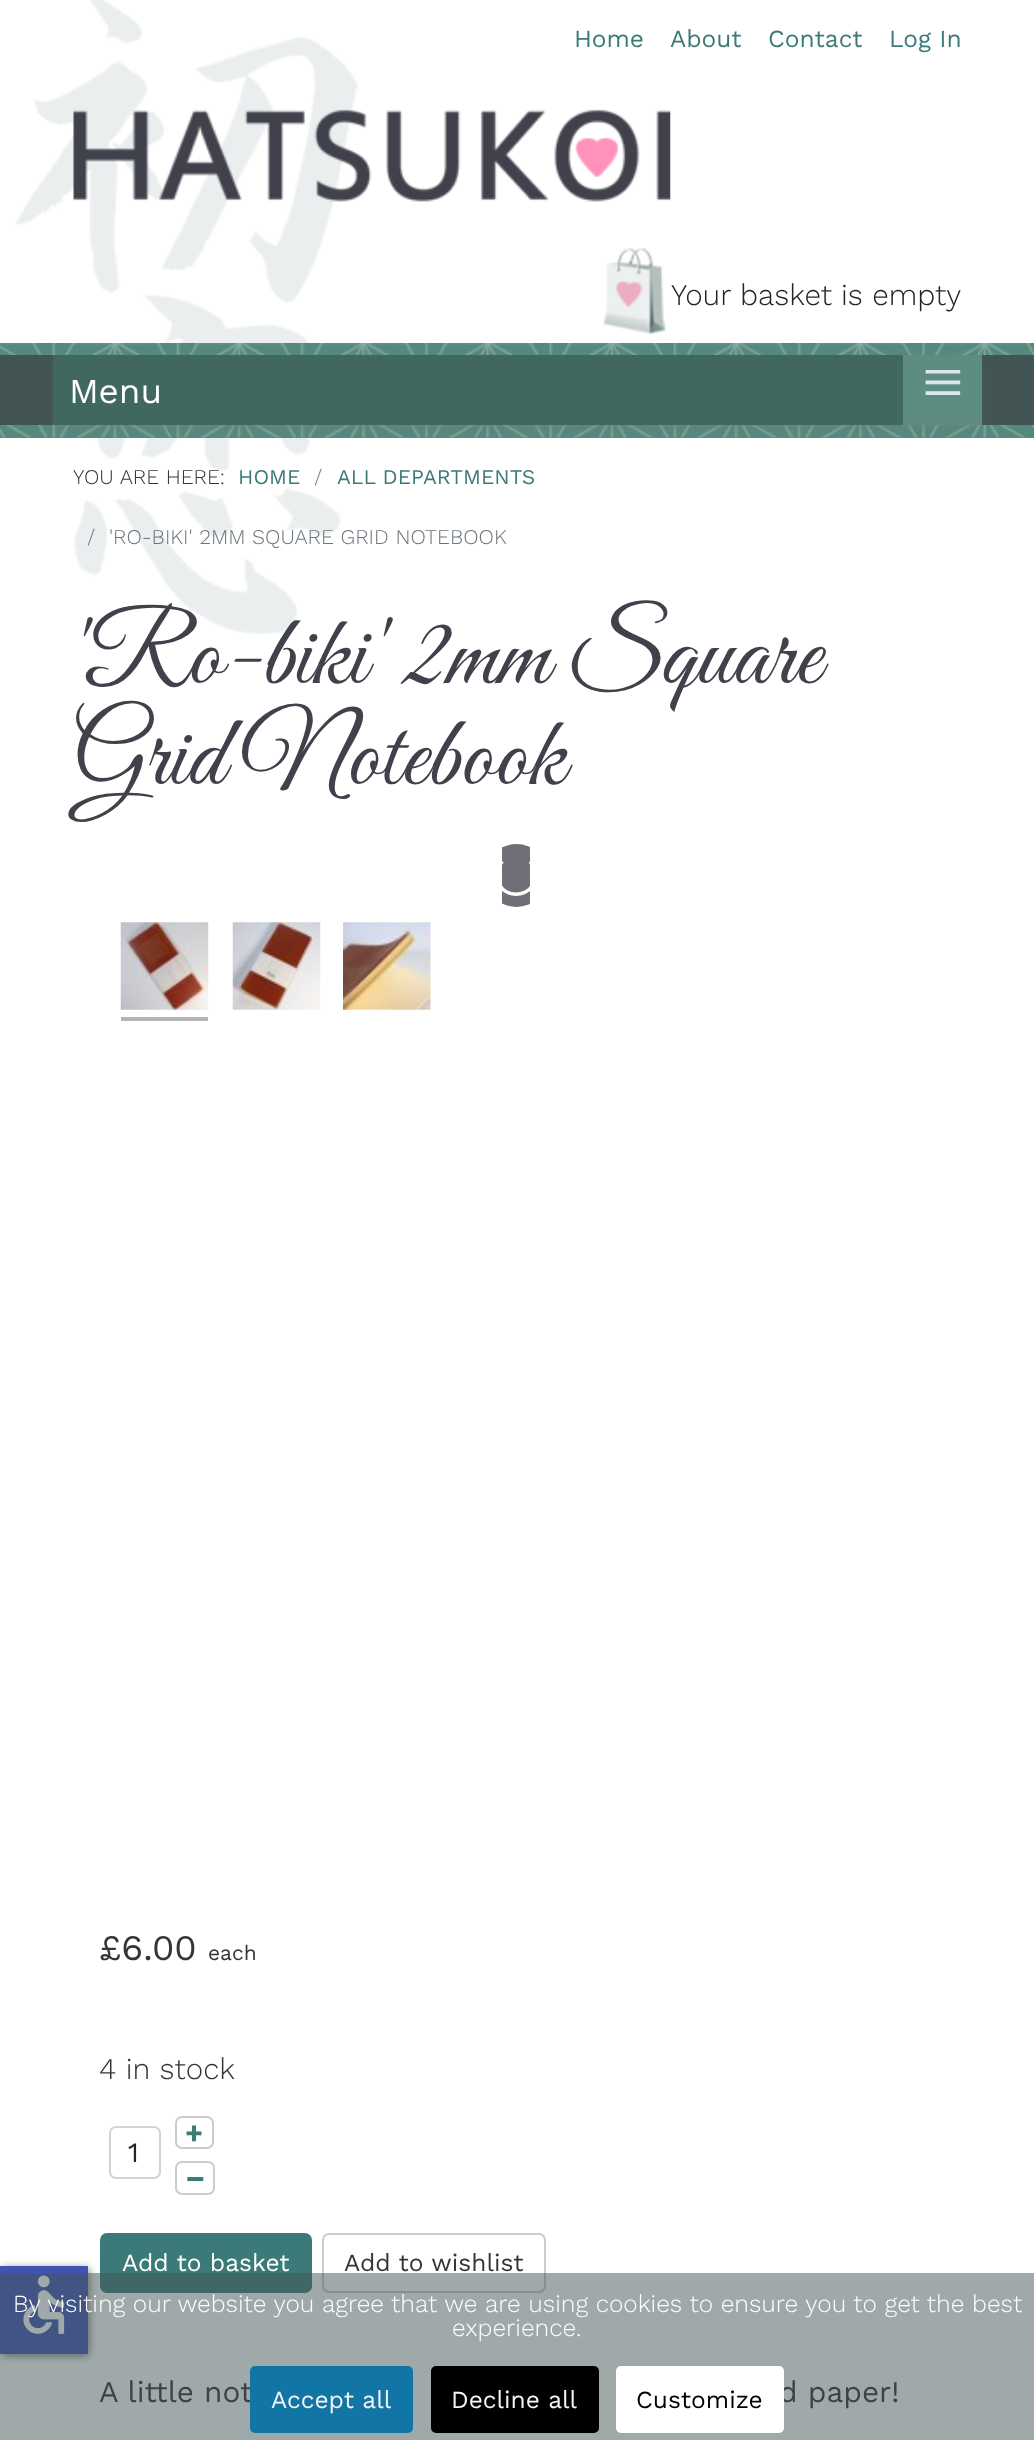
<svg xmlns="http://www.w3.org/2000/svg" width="1034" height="2440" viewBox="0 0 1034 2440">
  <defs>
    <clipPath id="clip1"><rect x="502" y="844" width="28" height="63"/></clipPath>
  </defs>
  <rect width="100%" height="100%" fill="rgb(255,255,255)"/>
  <image x="15" y="0" width="344" height="634" href="pic1.png"/>
  <g font-family="Work Sans" font-size="24.5" fill="rgb(60,122,122)">
    <text x="574" y="47">Home</text>
    <text x="670" y="47">About</text>
    <text x="768" y="47">Contact</text>
    <text x="889" y="47">Log In</text>
  </g>
  <image x="73" y="109" width="598" height="93" href="pic2.png"/>
  <image x="603" y="248" width="63" height="87" href="pic3.png"/>
  <text x="671" y="305" font-family="Work Sans" font-size="29.75" font-weight="300" fill="rgb(33,37,41)">Your basket is empty</text>
  <rect x="0" y="343" width="1034" height="95" fill="rgb(85,137,125)"/>
  <image x="0" y="343" width="1034" height="95" href="pic4.png"/>
  <rect x="0" y="355" width="1034" height="70" fill="rgb(66,84,84)"/>
  <rect x="58" y="364" width="919" height="60" fill="rgb(122,122,122)" filter="blur(4.5px)"/>
  <rect x="53" y="355" width="850" height="70" fill="rgb(65,104,95)"/>
  <text x="69" y="403" font-family="Work Sans" font-size="35" fill="rgb(255,255,255)">Menu</text>
  <rect x="903" y="355" width="79" height="70" fill="rgb(93,140,129)"/>
  <text x="922" y="407" font-family="Liberation Serif" font-size="74" fill="rgb(220,230,238)">≡</text>
  <rect x="101" y="2234" width="210" height="58" rx="6" fill="rgb(60,122,122)" stroke="rgb(60,122,122)" stroke-width="2"/>
  <rect x="2" y="2268" width="87" height="88" fill="rgba(0,0,0,0.5)" filter="blur(4.5px)"/>
  <rect x="0" y="2266" width="88" height="88" fill="rgb(64,84,178)"/>
  <image x="23" y="2275" width="42" height="59" href="pic5.png"/>
  <text x="73" y="484" font-family="Work Sans" font-size="21" font-weight="300" fill="rgb(53,53,53)">YOU ARE HERE:</text>
  <text x="238" y="484" font-family="Work Sans" font-size="21" fill="rgb(60,122,122)">HOME</text>
  <text x="314" y="484" font-family="Work Sans" font-size="21" font-weight="300" fill="rgb(108,117,125)">/</text>
  <text x="337" y="484" font-family="Work Sans" font-size="21" fill="rgb(60,122,122)">ALL DEPARTMENTS</text>
  <g font-family="Work Sans" font-size="21" font-weight="300" fill="rgb(108,117,125)">
    <text x="87" y="544">/</text>
    <text x="109" y="544">'RO-BIKI' 2MM SQUARE GRID NOTEBOOK</text>
  </g>
  <g font-family="Great Vibes" font-size="101.25" fill="rgb(64,65,75)">
    <text>
      <tspan x="73" y="683">'Ro-biki' 2mm Square</tspan>
      <tspan x="73" y="784">Grid Notebook</tspan>
    </text>
  </g>
  <g clip-path="url(#clip1)">
    <circle cx="516.5" cy="875.5" r="31.5" fill="rgb(111,112,119)"/>
    <path d="M530 861.5C533.5 865 535.5 870 535.5 875C535.5 898 502 901.5 497.5 879C496 872.5 498 866 502.5 861.5" fill="none" stroke="rgb(255,255,255)" stroke-width="3.5"/>
  </g>
  <image x="120" y="922" width="89" height="88" href="pic6.png"/>
  <rect x="121" y="1017" width="87" height="4" fill="rgb(180,180,180)"/>
  <image x="232" y="922" width="89" height="88" href="pic7.png"/>
  <image x="343" y="922" width="88" height="88" href="pic8.png"/>
  <text x="99" y="1960" font-family="Work Sans" font-size="36" fill="rgb(53,53,53)">£6.00</text>
  <text x="208" y="1960" font-family="Work Sans" font-size="21" fill="rgb(53,53,53)">each</text>
  <text x="99" y="2079" font-family="Work Sans" font-size="29.75" font-weight="300" fill="rgb(53,53,53)">4 in stock</text>
  <rect x="176" y="2117" width="37" height="31" rx="6" fill="none" stroke="rgb(204,204,204)" stroke-width="2"/>
  <text x="185" y="2143" font-family="Work Sans" font-size="29.75" font-weight="bold" fill="rgb(60,122,122)">+</text>
  <rect x="110" y="2127" width="50" height="51" rx="6" fill="none" stroke="rgb(206,212,218)" stroke-width="2"/>
  <text x="128" y="2162" font-family="Work Sans" font-size="28" fill="rgb(33,37,41)">1</text>
  <rect x="176" y="2162" width="38" height="32" rx="6" fill="none" stroke="rgb(204,204,204)" stroke-width="2"/>
  <text x="185" y="2187" font-family="Work Sans" font-size="29.75" font-weight="bold" fill="rgb(60,122,122)">–</text>
  <text x="122" y="2271" font-family="Work Sans" font-size="24.5" fill="rgb(255,255,255)">Add to basket</text>
  <rect x="323" y="2234" width="222" height="58" rx="6" fill="none" stroke="rgb(204,204,204)" stroke-width="2"/>
  <text x="344" y="2271" font-family="Work Sans" font-size="24.5" fill="rgb(53,53,53)">Add to wishlist</text>
  <g font-family="Work Sans" font-size="29.75" fill="rgb(53,53,53)">
    <text x="99" y="2402">A little not</text>
    <text x="779" y="2402">d paper!</text>
  </g>
  <rect x="0" y="2273" width="1034" height="167" fill="rgba(66,84,84,0.5)"/>
  <g font-family="Work Sans" font-size="24.5" font-weight="300" fill="rgb(255,255,255)">
    <text x="13" y="2312">By visiting our website you agree that we are using cookies to ensure you to get the best</text>
    <text x="452" y="2336">experience.</text>
  </g>
  <rect x="252" y="2368" width="159" height="63" rx="3" fill="rgb(17,118,166)" stroke="rgb(17,118,166)" stroke-width="4"/>
  <text x="271" y="2408" font-family="Work Sans" font-size="24.5" fill="rgb(245,245,245)">Accept all</text>
  <rect x="433" y="2368" width="164" height="63" rx="3" fill="rgb(0,0,0)" stroke="rgb(0,0,0)" stroke-width="4"/>
  <text x="451" y="2408" font-family="Work Sans" font-size="24.5" fill="rgb(245,245,245)">Decline all</text>
  <rect x="618" y="2368" width="164" height="63" rx="3" fill="rgb(255,255,255)" stroke="rgb(255,255,255)" stroke-width="4"/>
  <text x="636" y="2408" font-family="Work Sans" font-size="24.5" fill="rgb(0,0,0)">Customize</text>
</svg>
